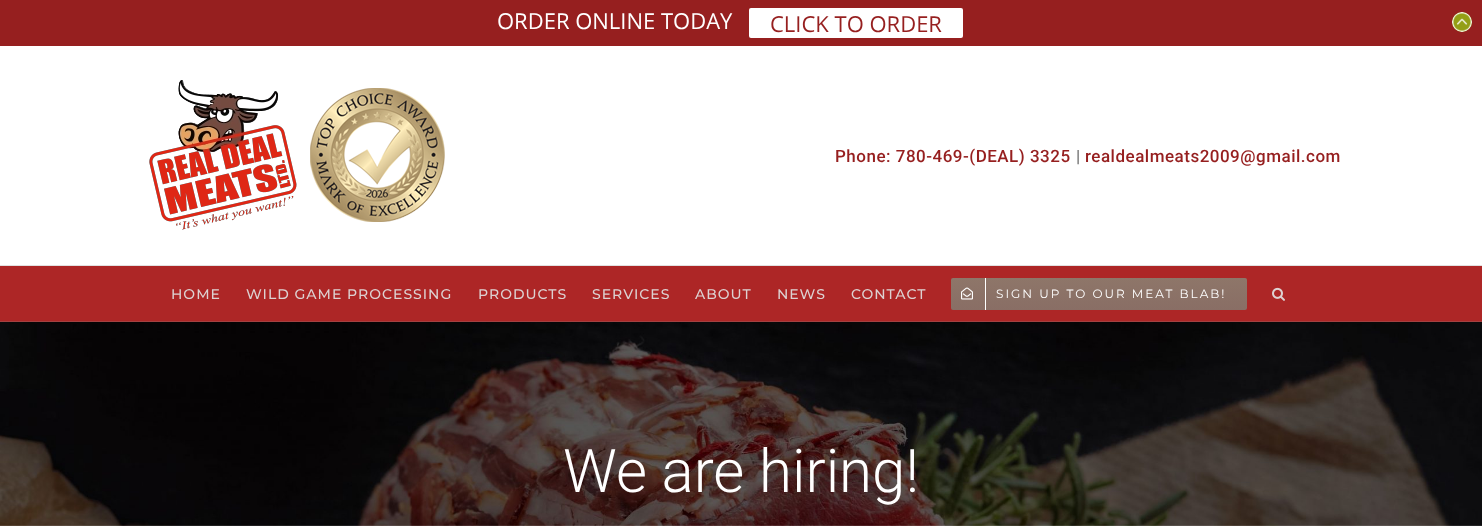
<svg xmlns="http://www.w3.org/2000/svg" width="1482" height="526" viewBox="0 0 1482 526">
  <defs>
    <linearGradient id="g1" gradientUnits="userSpaceOnUse" x1="1099" y1="278" x2="1099" y2="310"><stop offset="0" stop-color="rgb(142,118,105)"/><stop offset="1" stop-color="rgb(137,110,101)"/></linearGradient>
  </defs>
  <rect width="100%" height="100%" fill="rgb(255,255,255)"/>
  <rect x="0" y="0" width="1482" height="46" fill="rgb(150,31,31)"/>
  <text x="497" y="29" font-family="Open Sans" font-size="22" fill="rgb(255,255,255)">ORDER ONLINE TODAY</text>
  <rect x="749" y="8" width="214" height="30" rx="2" fill="rgb(255,255,255)"/>
  <text x="770" y="32" font-family="Open Sans" font-size="22" fill="rgb(150,31,31)">CLICK TO ORDER</text>
  <circle cx="1462" cy="22" r="10" fill="rgb(148,159,21)"/>
  <image x="1452" y="12" width="20" height="20" href="pic1.png"/>
  <rect x="0" y="265" width="1482" height="1" fill="rgb(225,225,225)"/>
  <image x="149" y="80" width="296" height="150" href="pic2.png"/>
  <text x="835" y="162" font-family="Roboto" font-size="17" font-weight="500" letter-spacing="0.5" fill="rgb(150,31,31)">Phone: 780-469-(DEAL) 3325</text>
  <text x="1076" y="162" font-family="Roboto" font-size="17" font-weight="500" letter-spacing="0.5" fill="rgb(116,116,116)">|</text>
  <text x="1085" y="162" font-family="Roboto" font-size="17" font-weight="500" letter-spacing="0.5" fill="rgb(150,31,31)">realdealmeats2009@gmail.com</text>
  <rect x="0" y="266" width="1482" height="55" fill="rgb(173,38,38)"/>
  <rect x="0" y="321" width="1482" height="1" fill="rgb(164,65,65)"/>
  <g font-family="Montserrat" font-size="14" font-weight="500" letter-spacing="1" fill="rgb(221,209,209)">
    <text x="171" y="299">HOME</text>
    <text x="246" y="299">WILD GAME PROCESSING</text>
    <text x="478" y="299">PRODUCTS</text>
    <text x="592" y="299">SERVICES</text>
    <text x="695" y="299">ABOUT</text>
    <text x="777" y="299">NEWS</text>
    <text x="851" y="299">CONTACT</text>
  </g>
  <rect x="951" y="278" width="296" height="32" rx="2" fill="url(#g1)"/>
  <rect x="985" y="278" width="1" height="32" fill="rgb(255,255,255)"/>
  <image x="961" y="287" width="12" height="13" href="pic3.png"/>
  <text x="996" y="298" font-family="Montserrat" font-size="12" letter-spacing="2" fill="rgb(255,255,255)">SIGN UP TO OUR MEAT BLAB!</text>
  <image x="1272" y="287" width="13" height="14" href="pic4.png"/>
  <image x="0" y="322" width="1482" height="204" href="pic5.png"/>
  <text x="563" y="492" font-family="Roboto" font-size="60" font-weight="300" fill="rgb(255,255,255)">We are hiring!</text>
</svg>
